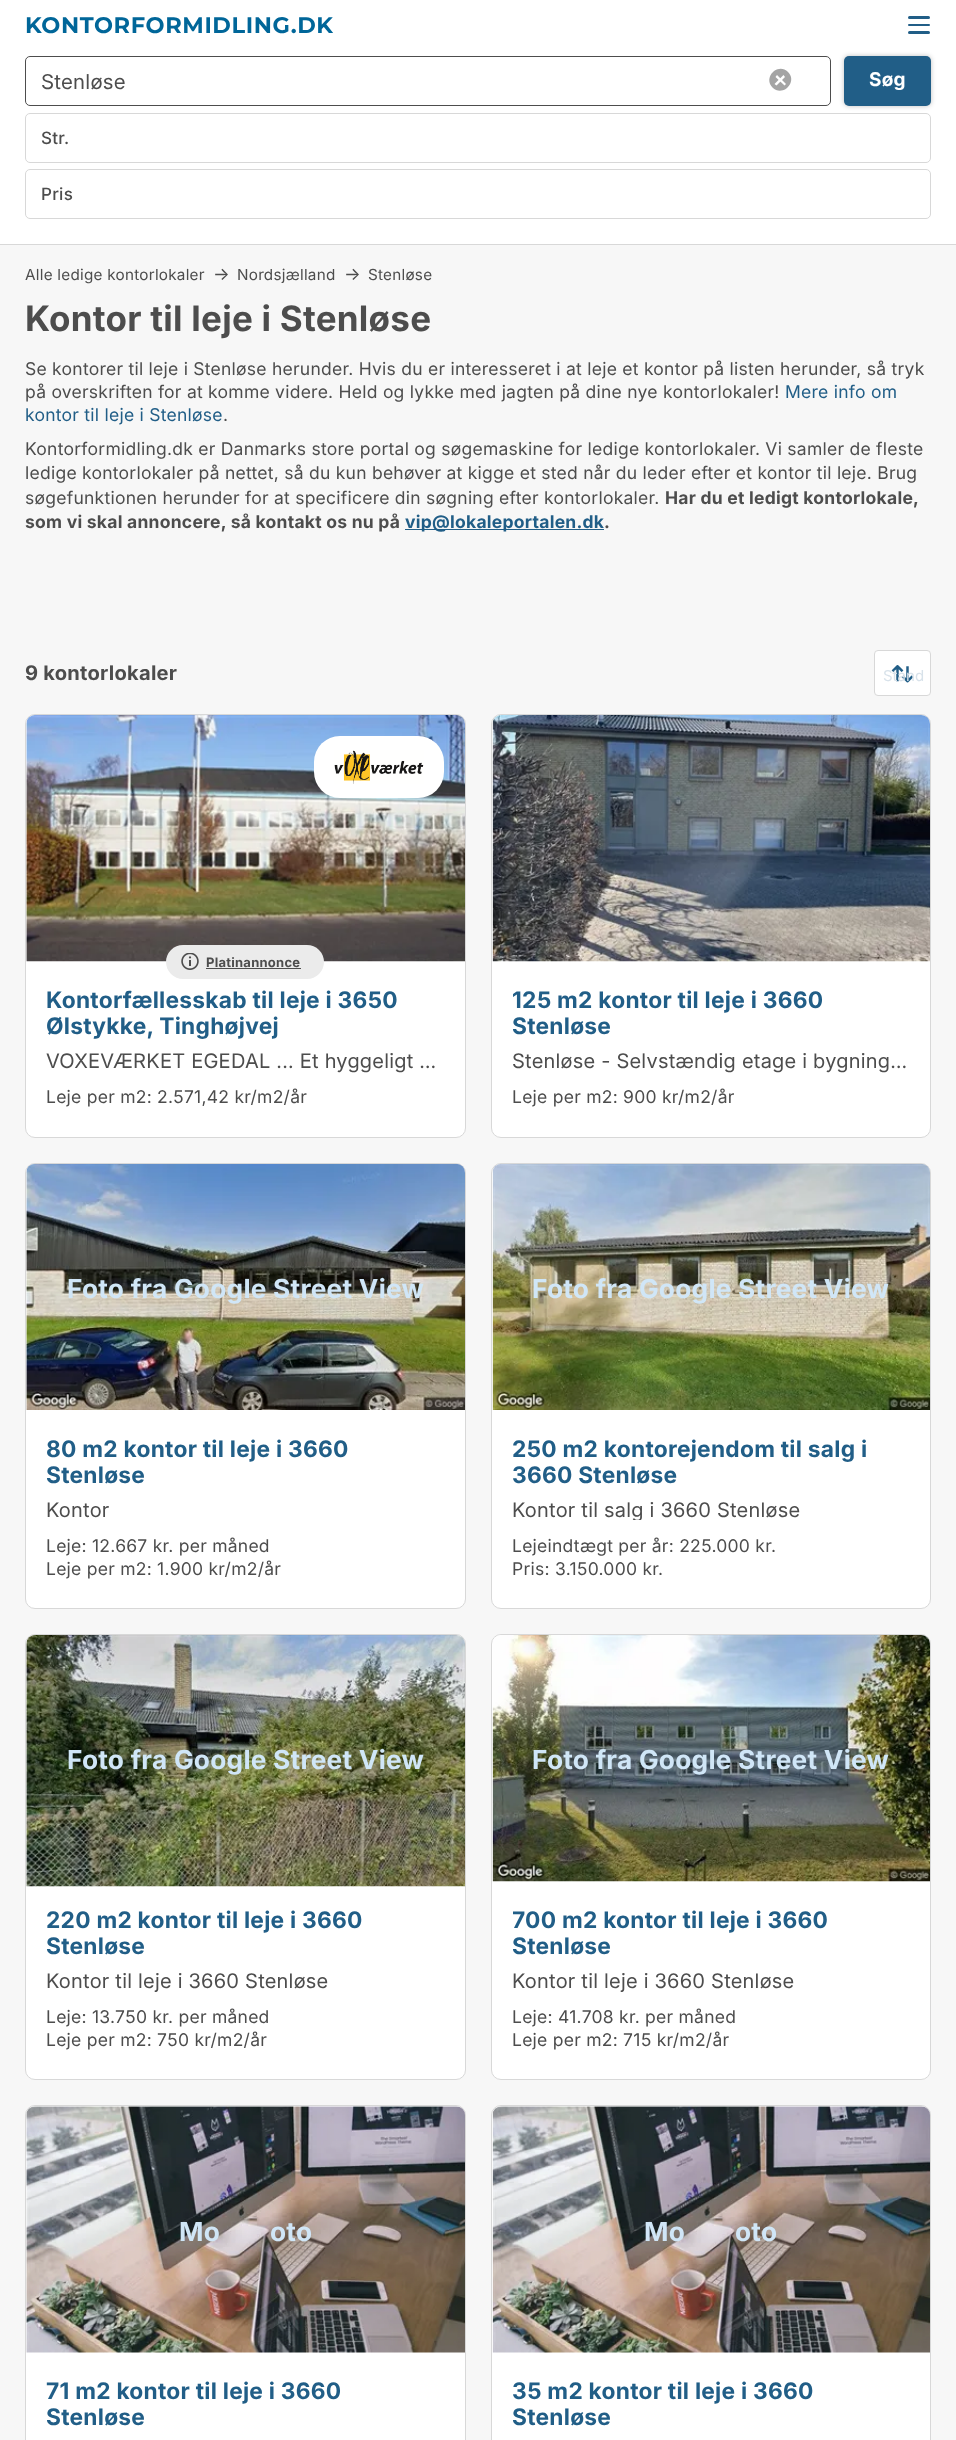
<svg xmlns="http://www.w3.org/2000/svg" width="956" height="2440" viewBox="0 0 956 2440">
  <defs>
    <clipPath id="clip1"><rect x="513" y="986" width="397" height="53"/></clipPath>
    <clipPath id="clip2"><rect x="513" y="1498" width="397" height="22"/></clipPath>
    <clipPath id="clip3"><rect x="513" y="1906" width="397" height="53"/></clipPath>
  </defs>
  <rect width="100%" height="100%" fill="rgb(255,255,255)"/>
  <text x="25" y="33" font-family="Montserrat" font-size="22.5" font-weight="bold" letter-spacing="0.6" fill="rgb(0,102,153)">KONTORFORMIDLING.DK</text>
  <rect x="908" y="16" width="22" height="3" rx="1.5" fill="rgb(33,94,135)"/>
  <rect x="908" y="24" width="22" height="2" rx="1" fill="rgb(33,94,135)"/>
  <rect x="908" y="31" width="22" height="3" rx="1.5" fill="rgb(33,94,135)"/>
  <rect x="0" y="245" width="956" height="2195" fill="rgb(247,247,247)"/>
  <rect x="0" y="244" width="956" height="1" fill="rgb(216,216,216)"/>
  <rect x="25.5" y="56.5" width="805" height="49" rx="4.5" fill="none" stroke="rgb(77,77,77)"/>
  <text x="41" y="89" font-family="'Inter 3'" font-size="20.5" letter-spacing="0.25" fill="rgb(77,77,77)">Stenløse</text>
  <path d="M788 72C798 82 782.5 97.5 772.5 87.5C762.5 77.5 778 62 788 72Z" fill="rgb(164,164,164)"/>
  <path d="M777 75L786 84L784.5 85.5L775.5 77Z" fill="rgb(255,255,255)"/>
  <path d="M783.5 75L785 77L776.5 85.5L774.5 84Z" fill="rgb(255,255,255)"/>
  <rect x="844" y="56" width="87" height="50" rx="5" fill="rgba(0,0,0,0.25)" filter="blur(2.5px)"/>
  <rect x="844" y="56" width="87" height="50" rx="5" fill="rgb(33,94,135)"/>
  <text x="869" y="86" font-family="Inter" font-size="19" font-weight="bold" letter-spacing="0.25" fill="rgb(255,255,255)">Søg</text>
  <rect x="25.5" y="113.5" width="905" height="49" rx="4.5" fill="none" stroke="rgb(216,216,216)"/>
  <text x="41" y="144" font-family="Inter" font-size="17" font-weight="500" letter-spacing="0.25" fill="rgb(77,77,77)">Str.</text>
  <rect x="25.5" y="169.5" width="905" height="49" rx="4.5" fill="none" stroke="rgb(216,216,216)"/>
  <text x="41" y="200" font-family="Inter" font-size="17" font-weight="500" letter-spacing="0.25" fill="rgb(77,77,77)">Pris</text>
  <text x="25" y="280" font-family="Inter" font-size="15.25" letter-spacing="0.25" fill="rgb(77,77,77)">Alle ledige kontorlokaler</text>
  <text x="213" y="280" font-family="Inter" font-size="17.5" letter-spacing="0.25" fill="rgb(77,77,77)">→</text>
  <text x="237" y="280" font-family="Inter" font-size="15.25" letter-spacing="0.25" fill="rgb(77,77,77)">Nordsjælland</text>
  <text x="344" y="280" font-family="Inter" font-size="17.5" letter-spacing="0.25" fill="rgb(77,77,77)">→</text>
  <text x="368" y="280" font-family="Inter" font-size="15.25" letter-spacing="0.25" fill="rgb(77,77,77)">Stenløse</text>
  <text x="25" y="331" font-family="Inter" font-size="35" font-weight="bold" letter-spacing="0.25" fill="rgb(77,77,77)">Kontor til leje i Stenløse</text>
  <g font-family="Inter" font-size="17.5" letter-spacing="0.25" fill="rgb(77,77,77)">
    <text>
      <tspan x="25" y="375">Se kontorer til leje i Stenløse herunder. Hvis du er interesseret i at leje et kontor på listen herunder, så tryk</tspan>
      <tspan x="25" y="398">på overskriften for at komme videre. Held og lykke med jagten på dine nye kontorlokaler!</tspan>
    </text>
  </g>
  <g font-family="Inter" font-size="17.5" letter-spacing="0.25" fill="rgb(33,94,135)">
    <text x="785" y="398">Mere info om</text>
    <text x="25" y="421">kontor til leje i Stenløse</text>
  </g>
  <g font-family="Inter" font-size="17.5" letter-spacing="0.25" fill="rgb(77,77,77)">
    <text x="223" y="421">.</text>
    <text>
      <tspan x="25" y="455">Kontorformidling.dk er Danmarks store portal og søgemaskine for ledige kontorlokaler. Vi samler de fleste</tspan>
      <tspan x="25" y="479">ledige kontorlokaler på nettet, så du kun behøver at kigge et sted når du leder efter et kontor til leje. Brug</tspan>
      <tspan x="25" y="504">søgefunktionen herunder for at specificere din søgning efter kontorlokaler.</tspan>
    </text>
  </g>
  <g font-family="Inter" font-size="17.5" font-weight="bold" letter-spacing="0.25" fill="rgb(77,77,77)">
    <text x="665" y="504">Har du et ledigt kontorlokale,</text>
    <text x="25" y="528">som vi skal annoncere, så kontakt os nu på</text>
  </g>
  <rect x="405" y="529" width="199" height="1" fill="rgb(33,94,135)"/>
  <text x="405" y="528" font-family="Inter" font-size="17.5" font-weight="bold" letter-spacing="0.25" fill="rgb(33,94,135)">vip@lokaleportalen.dk</text>
  <text x="604" y="528" font-family="Inter" font-size="17.5" font-weight="bold" letter-spacing="0.25" fill="rgb(77,77,77)">.</text>
  <text x="25" y="680" font-family="Inter" font-size="20.1" font-weight="bold" letter-spacing="0.25" fill="rgb(77,77,77)">9 kontorlokaler</text>
  <rect x="874.5" y="650.5" width="56" height="45" rx="3.5" fill="rgb(255,255,255)" stroke="rgb(216,216,216)"/>
  <image x="891" y="665" width="23" height="18" href="pic1.png"/>
  <text x="883" y="681" font-family="Inter" font-size="15" fill="rgb(216,226,234)">Stand</text>
  <rect x="25.5" y="714.5" width="440" height="423" rx="9.5" fill="rgb(255,255,255)" stroke="rgb(216,216,216)"/>
  <image x="26" y="715" width="439" height="247" href="pic2.png"/>
  <rect x="314" y="736" width="130" height="62" rx="26" fill="rgb(255,255,255)"/>
  <image x="334" y="750" width="90" height="34" href="pic3.png"/>
  <rect x="166" y="945" width="158" height="34" rx="17" fill="rgb(235,235,235)"/>
  <image x="181" y="953" width="18" height="17" href="pic4.png"/>
  <text x="206" y="967" font-family="Inter" font-size="13" font-weight="bold" letter-spacing="0.25" fill="rgb(77,77,77)">Platinannonce</text>
  <rect x="206" y="968" width="95" height="1" fill="rgb(77,77,77)"/>
  <g font-family="Inter" font-size="22.75" font-weight="bold" letter-spacing="0.25" fill="rgb(33,94,135)">
    <text>
      <tspan x="46" y="1008">Kontorfællesskab til leje i 3650</tspan>
      <tspan x="46" y="1034">Ølstykke, Tinghøjvej</tspan>
    </text>
  </g>
  <text x="46" y="1068" font-family="'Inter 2'" font-size="20.1" letter-spacing="0.25" fill="rgb(77,77,77)">VOXEVÆRKET EGEDAL ... Et hyggeligt …</text>
  <text x="46" y="1103" font-family="Inter" font-size="17.5" letter-spacing="0.25" fill="rgb(77,77,77)">Leje per m2: 2.571,42 kr/m2/år</text>
  <rect x="491.5" y="714.5" width="439" height="423" rx="9.5" fill="rgb(255,255,255)" stroke="rgb(216,216,216)"/>
  <image x="492" y="715" width="438" height="247" href="pic5.png"/>
  <g clip-path="url(#clip1)">
    <text x="512" y="1008" font-family="Inter" font-size="22.75" font-weight="bold" letter-spacing="0.25" fill="rgb(33,94,135)">125 m2 kontor til leje i 3660</text>
  </g>
  <text x="512" y="1034" font-family="Inter" font-size="22.75" font-weight="bold" letter-spacing="0.25" fill="rgb(33,94,135)">Stenløse</text>
  <text x="512" y="1068" font-family="'Inter 2'" font-size="20.1" letter-spacing="0.25" fill="rgb(77,77,77)">Stenløse - Selvstændig etage i bygning…</text>
  <text x="512" y="1103" font-family="Inter" font-size="17.5" letter-spacing="0.25" fill="rgb(77,77,77)">Leje per m2: 900 kr/m2/år</text>
  <rect x="25.5" y="1163.5" width="440" height="445" rx="9.5" fill="rgb(255,255,255)" stroke="rgb(216,216,216)"/>
  <image x="26" y="1164" width="439" height="246" href="pic6.png"/>
  <text x="67" y="1298" font-family="Inter" font-size="26.25" font-weight="bold" letter-spacing="0.25" fill="rgb(208,230,247)">Foto fra Google Street View</text>
  <g font-family="Inter" font-size="22.75" font-weight="bold" letter-spacing="0.25" fill="rgb(33,94,135)">
    <text>
      <tspan x="46" y="1457">80 m2 kontor til leje i 3660</tspan>
      <tspan x="46" y="1483">Stenløse</tspan>
    </text>
  </g>
  <text x="46" y="1517" font-family="'Inter 2'" font-size="20.1" letter-spacing="0.25" fill="rgb(77,77,77)">Kontor</text>
  <g font-family="Inter" font-size="17.5" letter-spacing="0.25" fill="rgb(77,77,77)">
    <text>
      <tspan x="46" y="1552">Leje: 12.667 kr. per måned</tspan>
      <tspan x="46" y="1575">Leje per m2: 1.900 kr/m2/år</tspan>
    </text>
  </g>
  <rect x="491.5" y="1163.5" width="439" height="445" rx="9.5" fill="rgb(255,255,255)" stroke="rgb(216,216,216)"/>
  <image x="492" y="1164" width="438" height="246" href="pic7.png"/>
  <text x="532" y="1298" font-family="Inter" font-size="26.25" font-weight="bold" letter-spacing="0.25" fill="rgb(208,230,247)">Foto fra Google Street View</text>
  <g font-family="Inter" font-size="22.75" font-weight="bold" letter-spacing="0.25" fill="rgb(33,94,135)">
    <text>
      <tspan x="512" y="1457">250 m2 kontorejendom til salg i</tspan>
      <tspan x="512" y="1483">3660 Stenløse</tspan>
    </text>
  </g>
  <g clip-path="url(#clip2)">
    <text x="512" y="1517" font-family="'Inter 2'" font-size="20.1" letter-spacing="0.25" fill="rgb(77,77,77)">Kontor til salg i 3660 Stenløse</text>
  </g>
  <g font-family="Inter" font-size="17.5" letter-spacing="0.25" fill="rgb(77,77,77)">
    <text>
      <tspan x="512" y="1552">Lejeindtægt per år: 225.000 kr.</tspan>
      <tspan x="512" y="1575">Pris: 3.150.000 kr.</tspan>
    </text>
  </g>
  <rect x="25.5" y="1634.5" width="440" height="445" rx="9.5" fill="rgb(255,255,255)" stroke="rgb(216,216,216)"/>
  <image x="26" y="1635" width="439" height="252" href="pic8.png"/>
  <text x="67" y="1769" font-family="Inter" font-size="26.25" font-weight="bold" letter-spacing="0.25" fill="rgb(208,230,247)">Foto fra Google Street View</text>
  <g font-family="Inter" font-size="22.75" font-weight="bold" letter-spacing="0.25" fill="rgb(33,94,135)">
    <text>
      <tspan x="46" y="1928">220 m2 kontor til leje i 3660</tspan>
      <tspan x="46" y="1954">Stenløse</tspan>
    </text>
  </g>
  <text x="46" y="1988" font-family="'Inter 2'" font-size="20.1" letter-spacing="0.25" fill="rgb(77,77,77)">Kontor til leje i 3660 Stenløse</text>
  <g font-family="Inter" font-size="17.5" letter-spacing="0.25" fill="rgb(77,77,77)">
    <text>
      <tspan x="46" y="2023">Leje: 13.750 kr. per måned</tspan>
      <tspan x="46" y="2046">Leje per m2: 750 kr/m2/år</tspan>
    </text>
  </g>
  <rect x="491.5" y="1634.5" width="439" height="445" rx="9.5" fill="rgb(255,255,255)" stroke="rgb(216,216,216)"/>
  <image x="492" y="1635" width="438" height="247" href="pic9.png"/>
  <text x="532" y="1769" font-family="Inter" font-size="26.25" font-weight="bold" letter-spacing="0.25" fill="rgb(208,230,247)">Foto fra Google Street View</text>
  <g clip-path="url(#clip3)">
    <text x="512" y="1928" font-family="Inter" font-size="22.75" font-weight="bold" letter-spacing="0.25" fill="rgb(33,94,135)">700 m2 kontor til leje i 3660</text>
  </g>
  <text x="512" y="1954" font-family="Inter" font-size="22.75" font-weight="bold" letter-spacing="0.25" fill="rgb(33,94,135)">Stenløse</text>
  <text x="512" y="1988" font-family="'Inter 2'" font-size="20.1" letter-spacing="0.25" fill="rgb(77,77,77)">Kontor til leje i 3660 Stenløse</text>
  <g font-family="Inter" font-size="17.5" letter-spacing="0.25" fill="rgb(77,77,77)">
    <text>
      <tspan x="512" y="2023">Leje: 41.708 kr. per måned</tspan>
      <tspan x="512" y="2046">Leje per m2: 715 kr/m2/år</tspan>
    </text>
  </g>
  <rect x="25.5" y="2105.5" width="440" height="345" rx="9.5" fill="rgb(255,255,255)" stroke="rgb(216,216,216)"/>
  <image x="26" y="2106" width="439" height="247" href="pic10.png"/>
  <g font-family="Inter" font-size="26.25" font-weight="bold" letter-spacing="0.25" fill="rgb(208,230,247)">
    <text x="179" y="2241">Mo</text>
    <text x="270" y="2241">oto</text>
  </g>
  <g font-family="Inter" font-size="22.75" font-weight="bold" letter-spacing="0.25" fill="rgb(33,94,135)">
    <text>
      <tspan x="46" y="2399">71 m2 kontor til leje i 3660</tspan>
      <tspan x="46" y="2425">Stenløse</tspan>
    </text>
  </g>
  <rect x="491.5" y="2105.5" width="439" height="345" rx="9.5" fill="rgb(255,255,255)" stroke="rgb(216,216,216)"/>
  <image x="492" y="2106" width="438" height="247" href="pic11.png"/>
  <g font-family="Inter" font-size="26.25" font-weight="bold" letter-spacing="0.25" fill="rgb(208,230,247)">
    <text x="644" y="2241">Mo</text>
    <text x="735" y="2241">oto</text>
  </g>
  <g font-family="Inter" font-size="22.75" font-weight="bold" letter-spacing="0.25" fill="rgb(33,94,135)">
    <text>
      <tspan x="512" y="2399">35 m2 kontor til leje i 3660</tspan>
      <tspan x="512" y="2425">Stenløse</tspan>
    </text>
  </g>
</svg>
